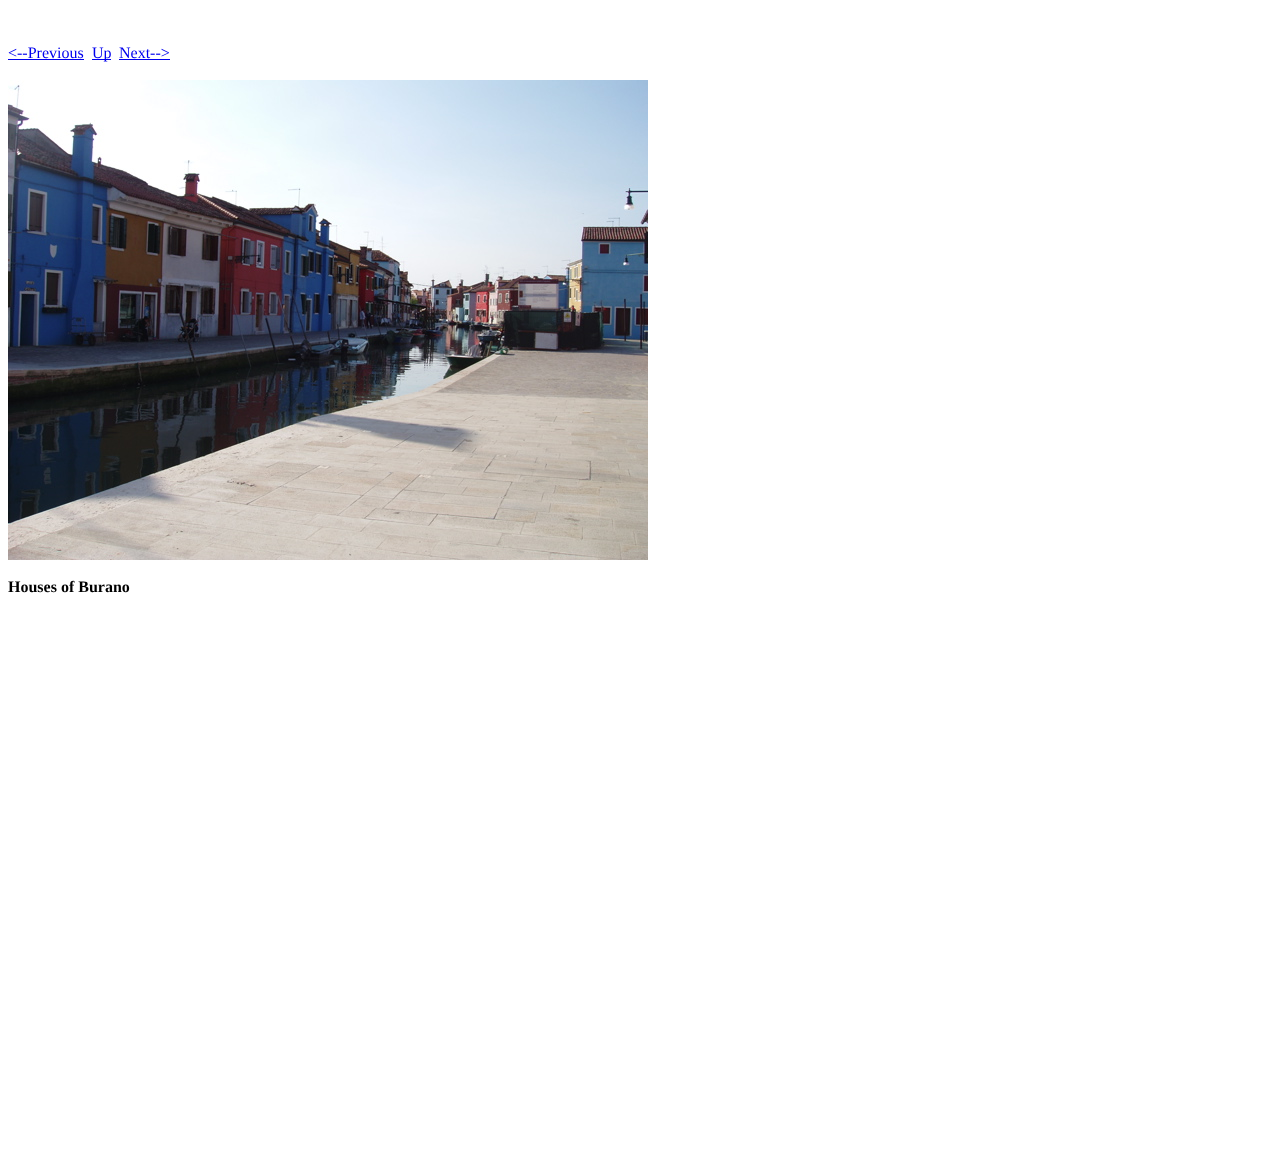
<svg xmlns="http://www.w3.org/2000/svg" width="1269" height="1171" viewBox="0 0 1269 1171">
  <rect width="100%" height="100%" fill="rgb(255,255,255)"/>
  <text x="8" y="58" font-family="Liberation Serif" font-size="16" fill="rgb(0,0,238)">&lt;--Previous</text>
  <rect x="8" y="59" width="76" height="1" fill="rgb(0,0,238)"/>
  <rect x="92" y="59" width="19" height="1" fill="rgb(0,0,238)"/>
  <g font-family="Liberation Serif" font-size="16" fill="rgb(0,0,238)">
    <text x="92" y="58">Up</text>
    <text x="119" y="58">Next--&gt;</text>
  </g>
  <rect x="119" y="59" width="51" height="1" fill="rgb(0,0,238)"/>
  <image x="8" y="80" width="640" height="480" href="pic1.png"/>
  <text x="8" y="592" font-family="Liberation Serif" font-size="16" font-weight="bold" fill="rgb(0,0,0)">Houses of Burano</text>
</svg>
